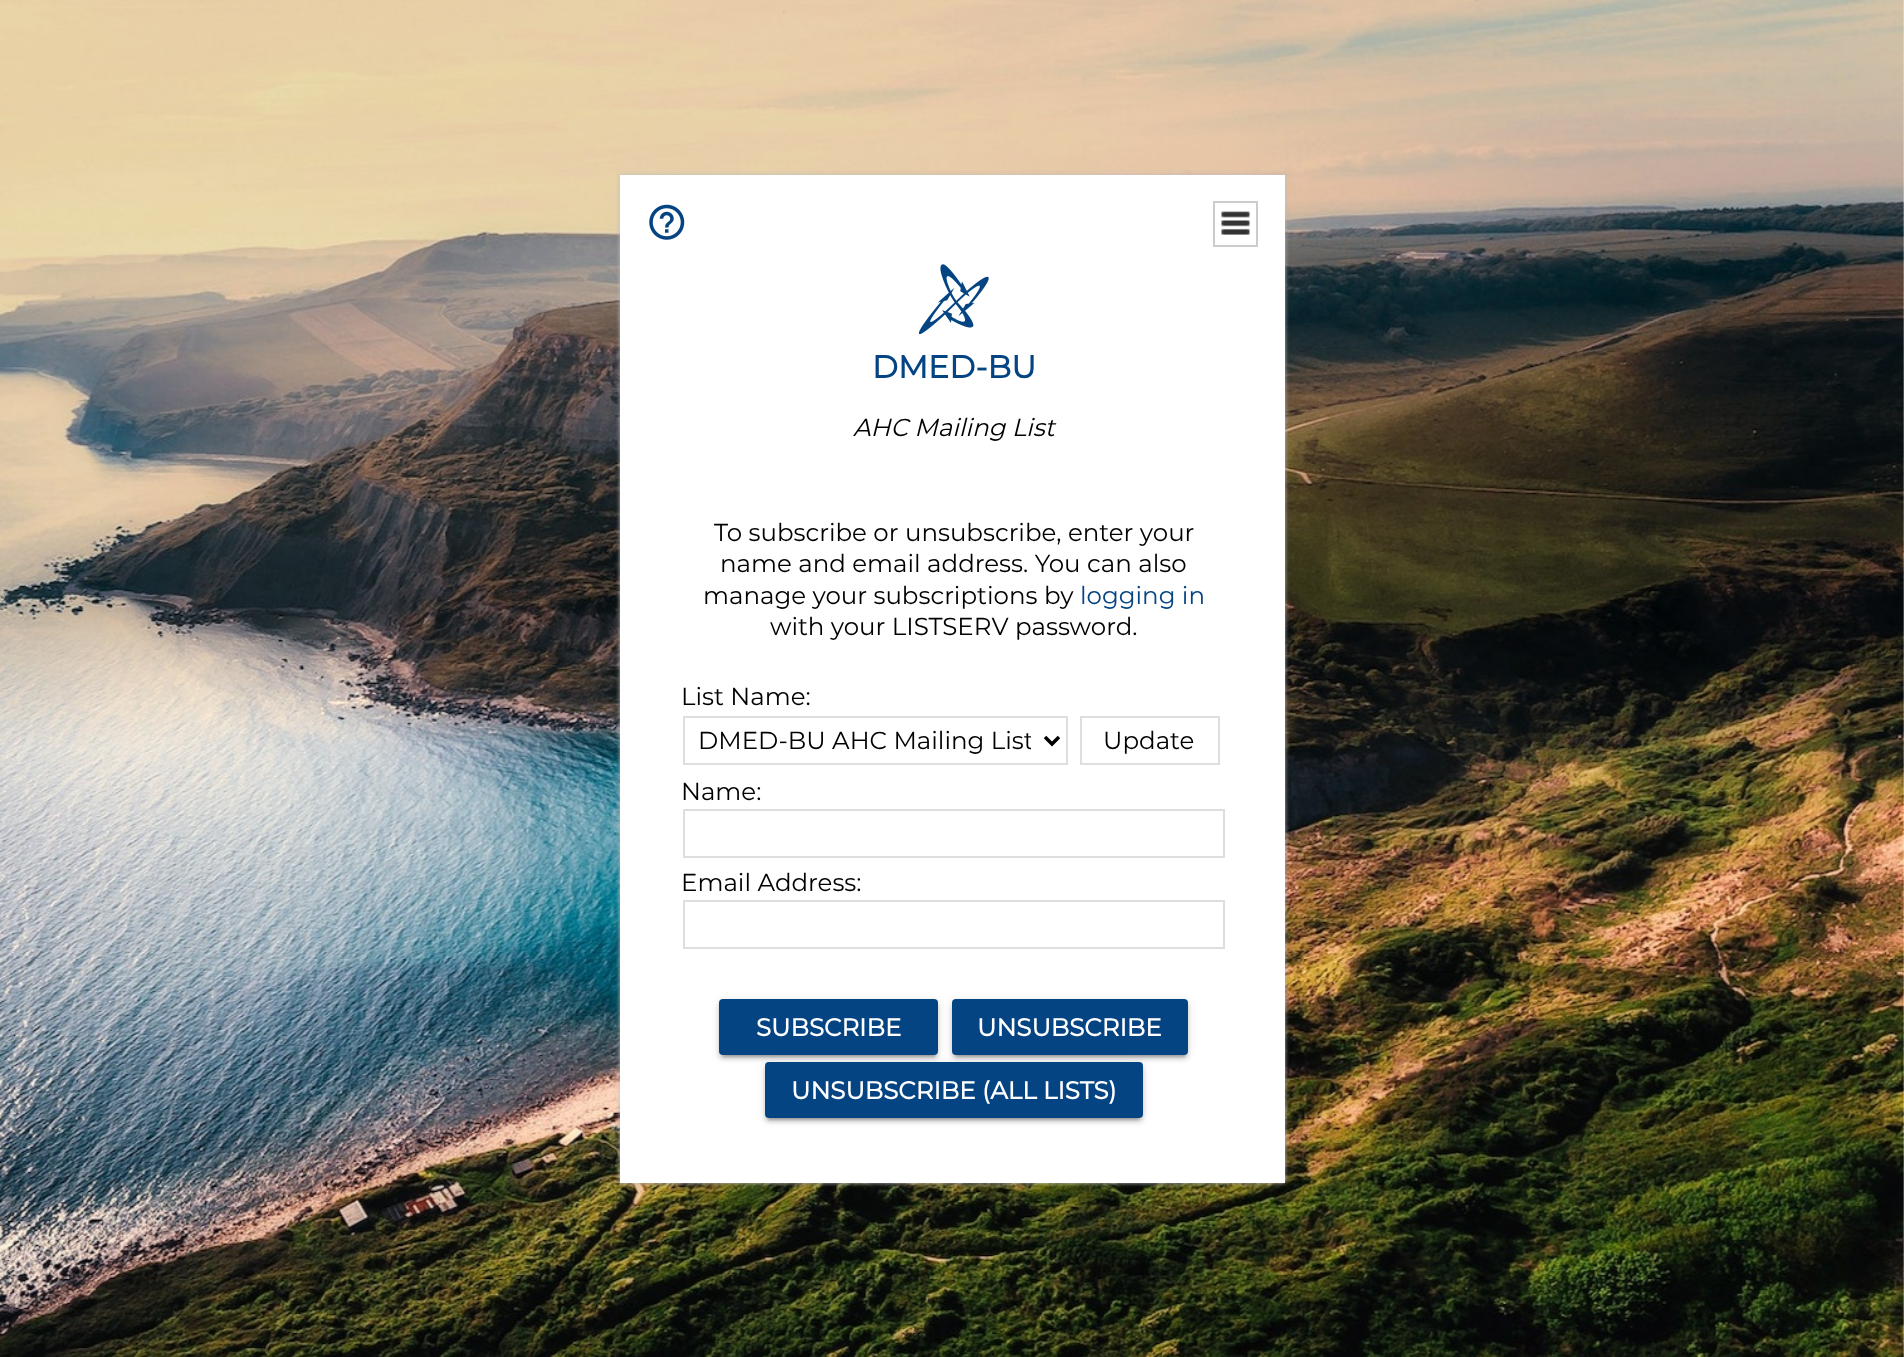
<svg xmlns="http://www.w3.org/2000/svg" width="1904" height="1357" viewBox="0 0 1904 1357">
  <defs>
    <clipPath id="clip1"><rect x="698" y="723" width="333" height="35"/></clipPath>
  </defs>
  <rect width="100%" height="100%" fill="rgb(255,255,255)"/>
  <image x="0" y="0" width="1904" height="1357" href="pic1.png"/>
  <rect x="620" y="175" width="665" height="1008" fill="rgb(187,187,187)" filter="blur(2px)"/>
  <rect x="620" y="175" width="665" height="1008" fill="rgb(255,255,255)"/>
  <image x="649" y="204" width="36" height="36" href="pic2.png"/>
  <rect x="1214" y="202" width="43" height="44" fill="none" stroke="rgb(204,204,204)" stroke-width="2"/>
  <image x="1221" y="211" width="29" height="24" href="pic3.png"/>
  <image x="919" y="264" width="70" height="70" href="pic4.png"/>
  <text x="872" y="378" font-family="Montserrat" font-size="31.5" font-weight="bold" fill="rgb(5,68,131)">DMED-BU</text>
  <text x="853" y="436" font-family="Montserrat" font-size="24.5" font-weight="100" font-style="italic" fill="rgb(0,0,0)">AHC Mailing List</text>
  <g font-family="Montserrat" font-size="24.5" font-weight="100" fill="rgb(0,0,0)">
    <text x="714" y="541">To subscribe or unsubscribe, enter your</text>
    <text x="720" y="572">name and email address. You can also</text>
    <text x="703" y="604">manage your subscriptions by</text>
  </g>
  <text x="1080" y="604" font-family="Montserrat" font-size="24.5" font-weight="100" fill="rgb(5,68,131)">logging in</text>
  <g font-family="Montserrat" font-size="24.5" font-weight="100" fill="rgb(0,0,0)">
    <text x="770" y="635">with your LISTSERV password.</text>
    <text x="681" y="705">List Name:</text>
  </g>
  <rect x="684" y="717" width="383" height="47" fill="none" stroke="rgb(222,222,222)" stroke-width="2"/>
  <path d="M1045 737L1052 744L1059 737" fill="none" stroke="rgb(0,0,0)" stroke-width="3.5"/>
  <g clip-path="url(#clip1)">
    <text x="698" y="749" font-family="Montserrat" font-size="24.5" font-weight="100" fill="rgb(0,0,0)">DMED-BU AHC Mailing List</text>
  </g>
  <rect x="1081" y="717" width="138" height="47" fill="none" stroke="rgb(222,222,222)" stroke-width="2"/>
  <g font-family="Montserrat" font-size="24.5" font-weight="100" fill="rgb(0,0,0)">
    <text x="1103" y="749">Update</text>
    <text x="681" y="800">Name:</text>
  </g>
  <rect x="684" y="810" width="540" height="47" fill="none" stroke="rgb(222,222,222)" stroke-width="2"/>
  <text x="681" y="891" font-family="Montserrat" font-size="24.5" font-weight="100" fill="rgb(0,0,0)">Email Address:</text>
  <rect x="684" y="901" width="540" height="47" fill="none" stroke="rgb(222,222,222)" stroke-width="2"/>
  <rect x="723" y="1008" width="212" height="49" fill="rgba(0,0,0,0.2)" filter="blur(1px)"/>
  <rect x="719" y="1001" width="219" height="56" rx="4" fill="rgba(0,0,0,0.12)" filter="blur(4.5px)"/>
  <rect x="719" y="1003" width="219" height="56" rx="4" fill="rgba(0,0,0,0.14)" filter="blur(2px)"/>
  <rect x="719" y="999" width="219" height="56" rx="4" fill="rgb(5,68,131)"/>
  <text x="756" y="1036" font-family="Montserrat" font-size="24.5" font-weight="bold" fill="rgb(255,255,255)">SUBSCRIBE</text>
  <rect x="956" y="1008" width="229" height="49" fill="rgba(0,0,0,0.2)" filter="blur(1px)"/>
  <rect x="952" y="1001" width="236" height="56" rx="4" fill="rgba(0,0,0,0.12)" filter="blur(4.5px)"/>
  <rect x="952" y="1003" width="236" height="56" rx="4" fill="rgba(0,0,0,0.14)" filter="blur(2px)"/>
  <rect x="952" y="999" width="236" height="56" rx="4" fill="rgb(5,68,131)"/>
  <text x="977" y="1036" font-family="Montserrat" font-size="24.5" font-weight="bold" fill="rgb(255,255,255)">UNSUBSCRIBE</text>
  <rect x="768" y="1071" width="371" height="49" fill="rgba(0,0,0,0.2)" filter="blur(1px)"/>
  <rect x="765" y="1064" width="378" height="56" rx="4" fill="rgba(0,0,0,0.12)" filter="blur(4.5px)"/>
  <rect x="765" y="1066" width="378" height="56" rx="4" fill="rgba(0,0,0,0.14)" filter="blur(2px)"/>
  <rect x="765" y="1062" width="378" height="56" rx="4" fill="rgb(5,68,131)"/>
  <text x="791" y="1099" font-family="Montserrat" font-size="24.5" font-weight="bold" fill="rgb(255,255,255)">UNSUBSCRIBE (ALL LISTS)</text>
</svg>
